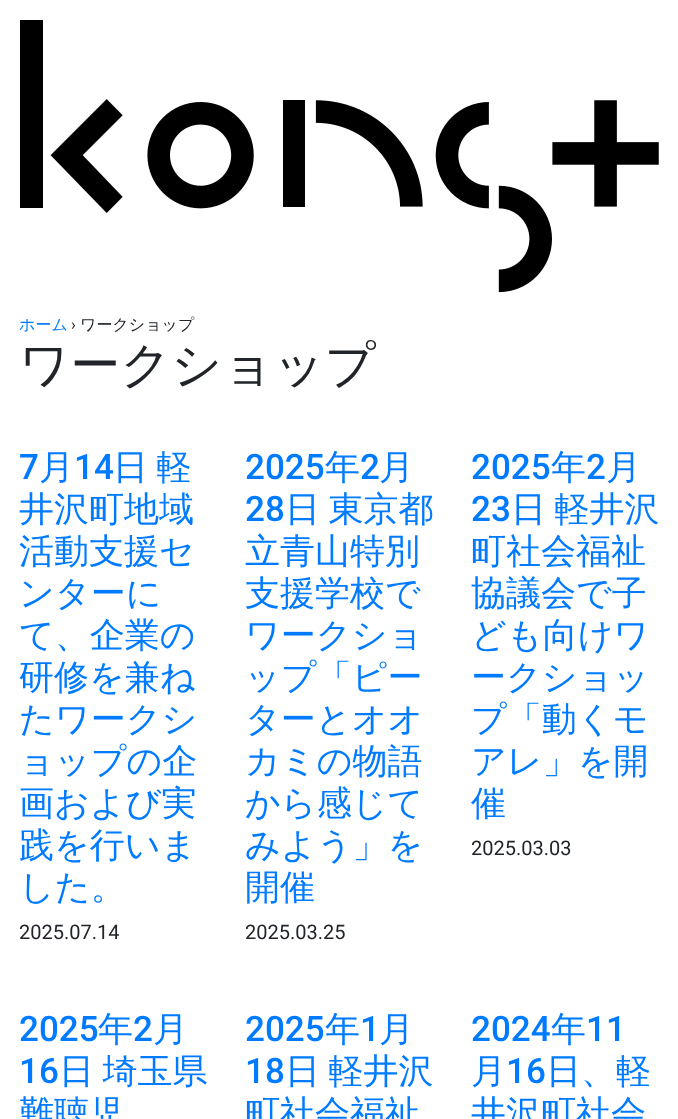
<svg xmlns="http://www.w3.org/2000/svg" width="678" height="1119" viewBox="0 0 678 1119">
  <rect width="100%" height="100%" fill="rgb(255,255,255)"/>
  <image x="20" y="20" width="639" height="273" href="pic1.png"/>
  <text x="19" y="330" font-family="WenQuanYi Zen Hei" font-size="16" font-weight="500" fill="rgb(0,123,255)">ホーム</text>
  <text x="71" y="330" font-family="Roboto" font-size="16" fill="rgb(33,37,41)">›</text>
  <text x="80" y="330" font-family="WenQuanYi Zen Hei" font-size="16" font-weight="500" fill="rgb(33,37,41)">ワークショップ</text>
  <text x="19" y="382" font-family="WenQuanYi Zen Hei" font-size="50" font-weight="500" fill="rgb(33,37,41)">ワークショップ</text>
  <text x="19" y="479" font-family="Roboto" font-size="35" font-weight="500" fill="rgb(0,123,255)">7</text>
  <text x="39" y="479" font-family="WenQuanYi Zen Hei" font-size="35" font-weight="500" fill="rgb(0,123,255)">月</text>
  <text x="74" y="479" font-family="Roboto" font-size="35" font-weight="500" fill="rgb(0,123,255)">14</text>
  <g font-family="WenQuanYi Zen Hei" font-size="35" font-weight="500" fill="rgb(0,123,255)">
    <text x="113" y="479" word-spacing="-2">日 軽</text>
    <text>
      <tspan x="19" y="521">井沢町地域</tspan>
      <tspan x="19" y="563">活動支援セ</tspan>
      <tspan x="19" y="605">ンターに</tspan>
      <tspan x="19" y="647">て、企業の</tspan>
      <tspan x="19" y="689">研修を兼ね</tspan>
      <tspan x="19" y="731">たワークシ</tspan>
      <tspan x="19" y="773">ョップの企</tspan>
      <tspan x="19" y="815">画および実</tspan>
      <tspan x="19" y="857">践を行いま</tspan>
      <tspan x="19" y="899">した。</tspan>
    </text>
  </g>
  <text x="19" y="939" font-family="Roboto" font-size="20" fill="rgb(33,37,41)">2025.07.14</text>
  <text x="245" y="479" font-family="Roboto" font-size="35" font-weight="500" fill="rgb(0,123,255)">2025</text>
  <text x="325" y="479" font-family="WenQuanYi Zen Hei" font-size="35" font-weight="500" fill="rgb(0,123,255)">年</text>
  <text x="360" y="479" font-family="Roboto" font-size="35" font-weight="500" fill="rgb(0,123,255)">2</text>
  <text x="379" y="479" font-family="WenQuanYi Zen Hei" font-size="35" font-weight="500" fill="rgb(0,123,255)">月</text>
  <text x="245" y="521" font-family="Roboto" font-size="35" font-weight="500" fill="rgb(0,123,255)">28</text>
  <g font-family="WenQuanYi Zen Hei" font-size="35" font-weight="500" fill="rgb(0,123,255)">
    <text x="285" y="521" word-spacing="-2">日 東京都</text>
    <text>
      <tspan x="245" y="563">立青山特別</tspan>
      <tspan x="245" y="605">支援学校で</tspan>
      <tspan x="245" y="647">ワークショ</tspan>
      <tspan x="245" y="689">ップ「ピー</tspan>
      <tspan x="245" y="731">ターとオオ</tspan>
      <tspan x="245" y="773">カミの物語</tspan>
      <tspan x="245" y="815">から感じて</tspan>
      <tspan x="245" y="857">みよう」を</tspan>
      <tspan x="245" y="899">開催</tspan>
    </text>
  </g>
  <text x="245" y="939" font-family="Roboto" font-size="20" fill="rgb(33,37,41)">2025.03.25</text>
  <text x="471" y="479" font-family="Roboto" font-size="35" font-weight="500" fill="rgb(0,123,255)">2025</text>
  <text x="551" y="479" font-family="WenQuanYi Zen Hei" font-size="35" font-weight="500" fill="rgb(0,123,255)">年</text>
  <text x="586" y="479" font-family="Roboto" font-size="35" font-weight="500" fill="rgb(0,123,255)">2</text>
  <text x="606" y="479" font-family="WenQuanYi Zen Hei" font-size="35" font-weight="500" fill="rgb(0,123,255)">月</text>
  <text x="471" y="521" font-family="Roboto" font-size="35" font-weight="500" fill="rgb(0,123,255)">23</text>
  <g font-family="WenQuanYi Zen Hei" font-size="35" font-weight="500" fill="rgb(0,123,255)">
    <text x="511" y="521" word-spacing="-2">日 軽井沢</text>
    <text>
      <tspan x="471" y="563">町社会福祉</tspan>
      <tspan x="471" y="605">協議会で子</tspan>
      <tspan x="471" y="647">ども向けワ</tspan>
      <tspan x="471" y="689">ークショッ</tspan>
      <tspan x="471" y="731">プ「動くモ</tspan>
      <tspan x="471" y="773">アレ」を開</tspan>
      <tspan x="471" y="815">催</tspan>
    </text>
  </g>
  <text x="471" y="855" font-family="Roboto" font-size="20" fill="rgb(33,37,41)">2025.03.03</text>
  <text x="19" y="1041" font-family="Roboto" font-size="35" font-weight="500" fill="rgb(0,123,255)">2025</text>
  <text x="98" y="1041" font-family="WenQuanYi Zen Hei" font-size="35" font-weight="500" fill="rgb(0,123,255)">年</text>
  <text x="133" y="1041" font-family="Roboto" font-size="35" font-weight="500" fill="rgb(0,123,255)">2</text>
  <text x="153" y="1041" font-family="WenQuanYi Zen Hei" font-size="35" font-weight="500" fill="rgb(0,123,255)">月</text>
  <text x="19" y="1083" font-family="Roboto" font-size="35" font-weight="500" fill="rgb(0,123,255)">16</text>
  <g font-family="WenQuanYi Zen Hei" font-size="35" font-weight="500" fill="rgb(0,123,255)">
    <text x="59" y="1083" word-spacing="-2">日 埼玉県</text>
    <text x="19" y="1125">難聴児</text>
  </g>
  <text x="245" y="1041" font-family="Roboto" font-size="35" font-weight="500" fill="rgb(0,123,255)">2025</text>
  <text x="325" y="1041" font-family="WenQuanYi Zen Hei" font-size="35" font-weight="500" fill="rgb(0,123,255)">年</text>
  <text x="360" y="1041" font-family="Roboto" font-size="35" font-weight="500" fill="rgb(0,123,255)">1</text>
  <text x="379" y="1041" font-family="WenQuanYi Zen Hei" font-size="35" font-weight="500" fill="rgb(0,123,255)">月</text>
  <text x="245" y="1083" font-family="Roboto" font-size="35" font-weight="500" fill="rgb(0,123,255)">18</text>
  <g font-family="WenQuanYi Zen Hei" font-size="35" font-weight="500" fill="rgb(0,123,255)">
    <text x="285" y="1083" word-spacing="-2">日 軽井沢</text>
    <text x="245" y="1125">町社会福祉</text>
  </g>
  <text x="471" y="1041" font-family="Roboto" font-size="35" font-weight="500" fill="rgb(0,123,255)">2024</text>
  <text x="551" y="1041" font-family="WenQuanYi Zen Hei" font-size="35" font-weight="500" fill="rgb(0,123,255)">年</text>
  <text x="586" y="1041" font-family="Roboto" font-size="35" font-weight="500" fill="rgb(0,123,255)">11</text>
  <text x="471" y="1083" font-family="WenQuanYi Zen Hei" font-size="35" font-weight="500" fill="rgb(0,123,255)">月</text>
  <text x="506" y="1083" font-family="Roboto" font-size="35" font-weight="500" fill="rgb(0,123,255)">16</text>
  <g font-family="WenQuanYi Zen Hei" font-size="35" font-weight="500" fill="rgb(0,123,255)">
    <text x="546" y="1083">日、軽</text>
    <text x="471" y="1125">井沢町社会</text>
  </g>
</svg>
